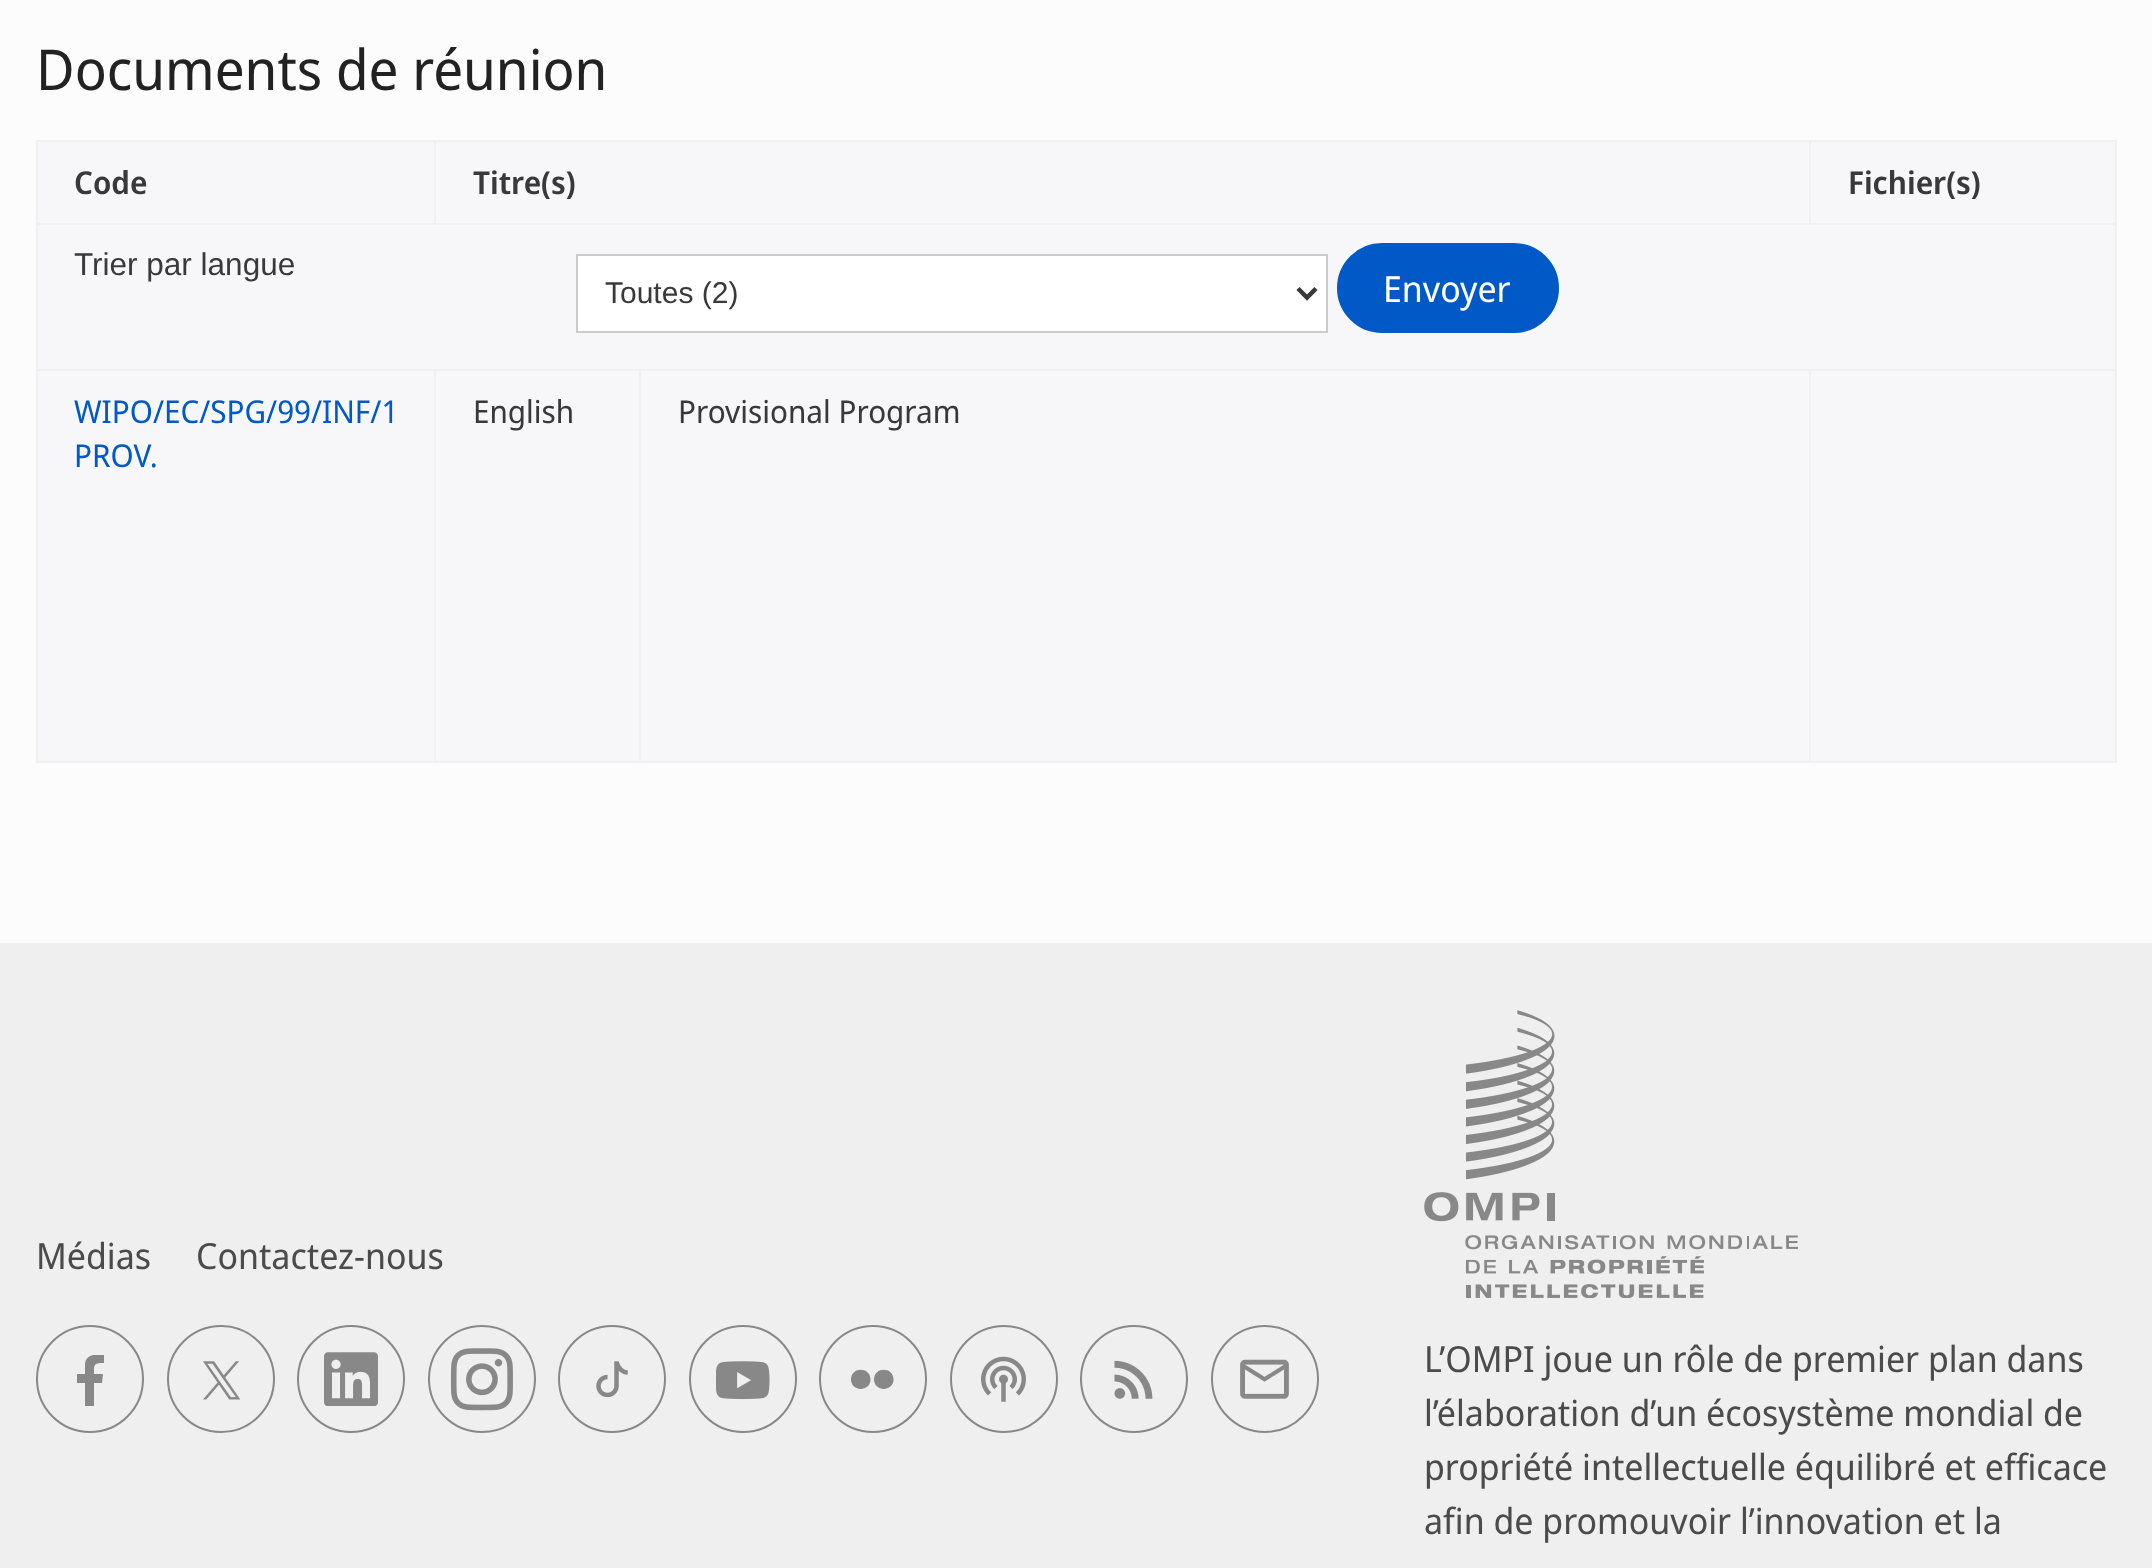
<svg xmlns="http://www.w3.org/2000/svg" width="2152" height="1568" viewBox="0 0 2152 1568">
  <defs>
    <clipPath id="clip1"><rect x="77" y="1355" width="27" height="51"/></clipPath>
  </defs>
  <rect width="100%" height="100%" fill="rgb(252,252,252)"/>
  <text x="36" y="90" font-family="Noto Sans Display" font-size="56.25" fill="rgb(34,34,34)">Documents de réunion</text>
  <rect x="434" y="140" width="1683" height="2" fill="rgb(240,240,240)"/>
  <rect x="2115" y="140" width="2" height="623" fill="rgb(240,240,240)"/>
  <rect x="36" y="761" width="2081" height="2" fill="rgb(240,240,240)"/>
  <rect x="36" y="140" width="2" height="623" fill="rgb(240,240,240)"/>
  <rect x="38" y="142" width="1771" height="81" fill="rgb(247,247,250)"/>
  <rect x="36" y="140" width="401" height="2" fill="rgb(240,240,240)"/>
  <rect x="1809" y="223" width="308" height="2" fill="rgb(240,240,240)"/>
  <rect x="1809" y="140" width="2" height="85" fill="rgb(240,240,240)"/>
  <rect x="434" y="223" width="1377" height="2" fill="rgb(240,240,240)"/>
  <rect x="434" y="140" width="2" height="85" fill="rgb(240,240,240)"/>
  <rect x="36" y="223" width="401" height="2" fill="rgb(240,240,240)"/>
  <g font-family="Noto Sans Display" font-size="31.5" font-weight="600" fill="rgb(57,57,57)">
    <text x="74" y="194">Code</text>
    <text x="473" y="194">Titre(s)</text>
  </g>
  <rect x="1811" y="142" width="304" height="81" fill="rgb(247,247,250)"/>
  <text x="1848" y="194" font-family="Noto Sans Display" font-size="31.5" font-weight="600" fill="rgb(57,57,57)">Fichier(s)</text>
  <rect x="38" y="225" width="2077" height="144" fill="rgb(247,247,250)"/>
  <text x="74" y="275" font-family="Liberation Sans" font-size="31.5" fill="rgb(57,57,57)">Trier par langue</text>
  <rect x="577" y="255" width="750" height="77" fill="rgb(255,255,255)" stroke="rgb(204,204,204)" stroke-width="2"/>
  <path d="M1298 288.5L1307 297.5L1316 288.5" fill="none" stroke="rgb(57,57,57)" stroke-width="4.5"/>
  <text x="605" y="303" font-family="Liberation Sans" font-size="30" fill="rgb(57,57,57)">Toutes (2)</text>
  <rect x="1338" y="244" width="220" height="88" rx="44" fill="rgb(0,89,198)" stroke="rgb(0,89,198)" stroke-width="2"/>
  <text x="1383" y="302" font-family="Noto Sans Display" font-size="36" fill="rgb(255,255,255)">Envoyer</text>
  <rect x="1811" y="371" width="304" height="390" fill="rgb(247,247,250)"/>
  <rect x="36" y="369" width="2081" height="2" fill="rgb(240,240,240)"/>
  <rect x="38" y="371" width="601" height="390" fill="rgb(247,247,250)"/>
  <rect x="434" y="369" width="2" height="394" fill="rgb(240,240,240)"/>
  <g font-family="Noto Sans Display" font-size="31.5" fill="rgb(0,89,198)">
    <text>
      <tspan x="74" y="423">WIPO/EC/SPG/99/INF/1</tspan>
      <tspan x="74" y="467">PROV.</tspan>
    </text>
  </g>
  <rect x="639" y="369" width="2" height="394" fill="rgb(240,240,240)"/>
  <text x="473" y="423" font-family="Noto Sans Display" font-size="31.5" fill="rgb(57,57,57)">English</text>
  <rect x="641" y="371" width="1168" height="390" fill="rgb(247,247,250)"/>
  <rect x="1809" y="369" width="2" height="394" fill="rgb(240,240,240)"/>
  <text x="678" y="423" font-family="Noto Sans Display" font-size="31.5" fill="rgb(57,57,57)">Provisional Program</text>
  <rect x="0" y="943" width="2152" height="625" fill="rgb(239,239,239)"/>
  <g font-family="Noto Sans Display" font-size="36" fill="rgb(75,75,75)">
    <text x="36" y="1269">Médias</text>
    <text x="196" y="1269">Contactez-nous</text>
  </g>
  <circle cx="90" cy="1379" r="53" fill="none" stroke="rgb(136,136,136)" stroke-width="2"/>
  <g clip-path="url(#clip1)">
    <path d="M102 1383L103 1374H94C94 1365 93 1363 104 1363V1355C96 1354 86 1354 85 1364V1374H76V1383H85V1406C88 1406 91 1406 94 1406V1383Z" fill="rgb(136,136,136)"/>
  </g>
  <circle cx="221" cy="1379" r="53" fill="none" stroke="rgb(136,136,136)" stroke-width="2"/>
  <image x="203" y="1361" width="38" height="39" href="pic1.png"/>
  <circle cx="351" cy="1379" r="53" fill="none" stroke="rgb(136,136,136)" stroke-width="2"/>
  <image x="324" y="1352" width="54" height="54" href="pic2.png"/>
  <circle cx="482" cy="1379" r="53" fill="none" stroke="rgb(136,136,136)" stroke-width="2"/>
  <image x="450" y="1348" width="63" height="63" href="pic3.png"/>
  <circle cx="612" cy="1379" r="53" fill="none" stroke="rgb(136,136,136)" stroke-width="2"/>
  <image x="596" y="1361" width="32" height="36" href="pic4.png"/>
  <circle cx="743" cy="1379" r="53" fill="none" stroke="rgb(136,136,136)" stroke-width="2"/>
  <image x="716" y="1361" width="54" height="39" href="pic5.png"/>
  <circle cx="873" cy="1379" r="53" fill="none" stroke="rgb(136,136,136)" stroke-width="2"/>
  <path d="M870.5 1379.5C870.5 1392 851 1392 851 1379.5C851 1366.5 870.5 1366.5 870.5 1379.5ZM893.5 1379.5C893.5 1392 874 1392 874 1379.5C874 1366.5 893.5 1366.5 893.5 1379.5Z" fill="rgb(136,136,136)"/>
  <circle cx="1004" cy="1379" r="53" fill="none" stroke="rgb(136,136,136)" stroke-width="2"/>
  <image x="981" y="1356" width="45" height="46" href="pic6.png"/>
  <circle cx="1134" cy="1379" r="53" fill="none" stroke="rgb(136,136,136)" stroke-width="2"/>
  <image x="1114" y="1360" width="39" height="39" href="pic7.png"/>
  <circle cx="1265" cy="1379" r="53" fill="none" stroke="rgb(136,136,136)" stroke-width="2"/>
  <image x="1240" y="1359" width="49" height="40" href="pic8.png"/>
  <image x="1424" y="1010" width="374" height="288" href="pic9.png"/>
  <g font-family="Noto Sans Display" font-size="36" fill="rgb(75,75,75)">
    <text>
      <tspan x="1424" y="1372">L’OMPI joue un rôle de premier plan dans</tspan>
      <tspan x="1424" y="1426">l’élaboration d’un écosystème mondial de</tspan>
      <tspan x="1424" y="1480">propriété intellectuelle équilibré et efficace</tspan>
      <tspan x="1424" y="1534">afin de promouvoir l’innovation et la</tspan>
    </text>
  </g>
</svg>
